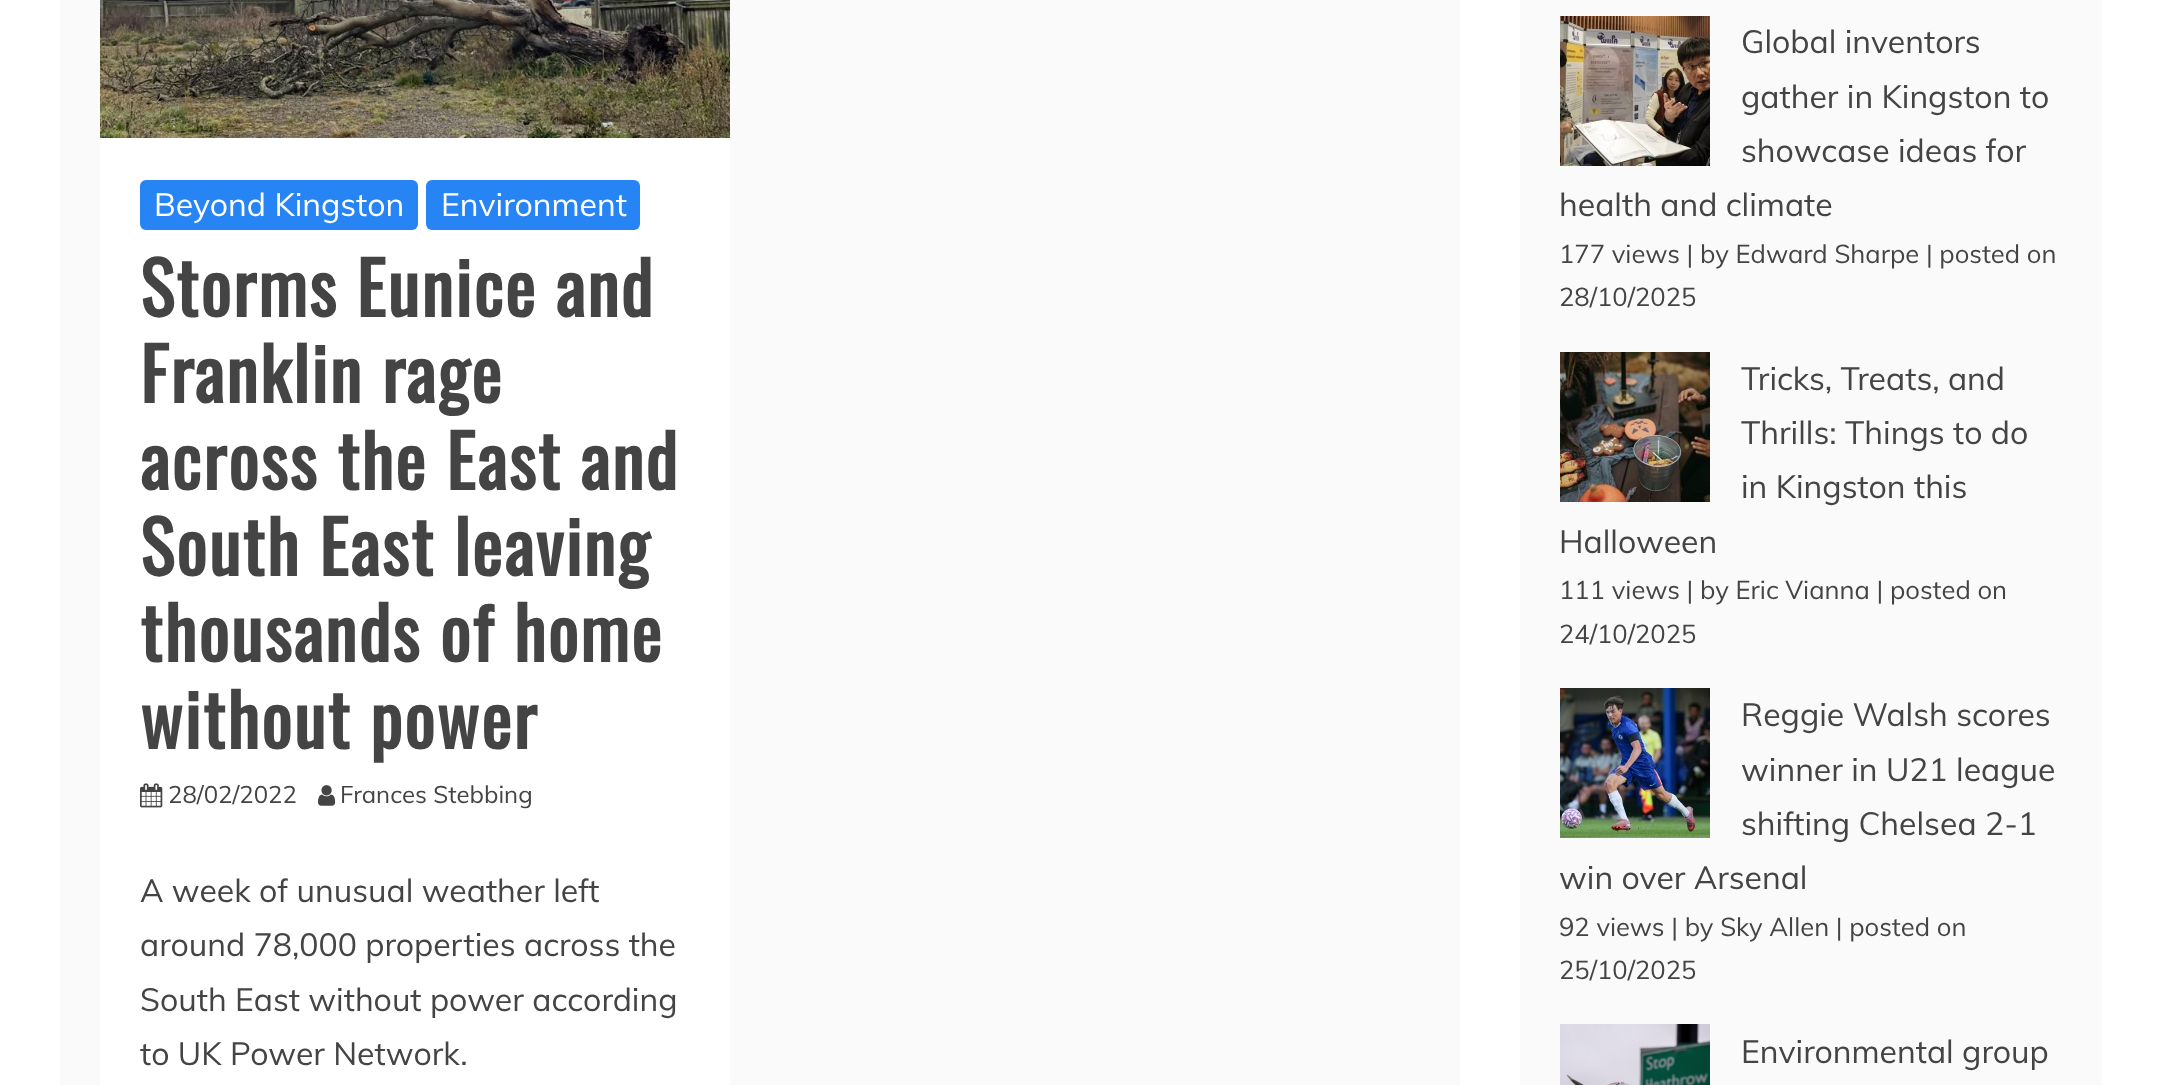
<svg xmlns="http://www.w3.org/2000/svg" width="2162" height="1085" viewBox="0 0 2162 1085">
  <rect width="100%" height="100%" fill="rgb(255,255,255)"/>
  <rect x="60" y="0" width="1400" height="1085" fill="rgb(250,250,250)"/>
  <rect x="100" y="138" width="630" height="947" fill="rgb(255,255,255)"/>
  <image x="100" y="0" width="630" height="138" href="pic1.png"/>
  <rect x="140" y="180" width="278" height="50" rx="6" fill="rgb(39,132,244)"/>
  <text x="154" y="216" font-family="Muli" font-size="32" fill="rgb(255,255,255)">Beyond Kingston</text>
  <rect x="426" y="180" width="214" height="50" rx="6" fill="rgb(39,132,244)"/>
  <text x="441" y="216" font-family="Muli" font-size="32" fill="rgb(255,255,255)">Environment</text>
  <g font-family="Oswald" font-size="72" font-weight="bold" letter-spacing="2" fill="rgb(68,68,68)">
    <text>
      <tspan x="140" y="317">Storms Eunice and</tspan>
      <tspan x="140" y="403">Franklin rage</tspan>
      <tspan x="140" y="490">across the East and</tspan>
      <tspan x="140" y="576">South East leaving</tspan>
      <tspan x="140" y="662">thousands of home</tspan>
      <tspan x="140" y="749">without power</tspan>
    </text>
  </g>
  <image x="140" y="783" width="23" height="25" href="pic2.png"/>
  <text x="168" y="803" font-family="Muli" font-size="24" fill="rgb(68,68,68)">28/02/2022</text>
  <image x="318" y="785" width="18" height="21" href="pic3.png"/>
  <text x="340" y="803" font-family="Muli" font-size="24" fill="rgb(68,68,68)">Frances Stebbing</text>
  <g font-family="Muli" font-size="32" fill="rgb(68,68,68)">
    <text>
      <tspan x="140" y="902">A week of unusual weather left</tspan>
      <tspan x="140" y="956">around 78,000 properties across the</tspan>
      <tspan x="140" y="1011">South East without power according</tspan>
      <tspan x="140" y="1065">to UK Power Network.</tspan>
    </text>
  </g>
  <rect x="1520" y="0" width="582" height="1085" fill="rgb(250,250,250)"/>
  <image x="1560" y="16" width="150" height="150" href="pic4.png"/>
  <g font-family="Muli" font-size="32" fill="rgb(68,68,68)">
    <text>
      <tspan x="1741" y="53">Global inventors</tspan>
      <tspan x="1741" y="108">gather in Kingston to</tspan>
      <tspan x="1741" y="162">showcase ideas for</tspan>
    </text>
    <text x="1559" y="216">health and climate</text>
  </g>
  <g font-family="Muli" font-size="25.6" fill="rgb(68,68,68)">
    <text>
      <tspan x="1559" y="263">177 views | by Edward Sharpe | posted on</tspan>
      <tspan x="1559" y="306">28/10/2025</tspan>
    </text>
  </g>
  <image x="1560" y="352" width="150" height="150" href="pic5.png"/>
  <g font-family="Muli" font-size="32" fill="rgb(68,68,68)">
    <text>
      <tspan x="1741" y="390">Tricks, Treats, and</tspan>
      <tspan x="1741" y="444">Thrills: Things to do</tspan>
      <tspan x="1741" y="498">in Kingston this</tspan>
    </text>
    <text x="1559" y="553">Halloween</text>
  </g>
  <g font-family="Muli" font-size="25.6" fill="rgb(68,68,68)">
    <text>
      <tspan x="1559" y="599">111 views | by Eric Vianna | posted on</tspan>
      <tspan x="1559" y="643">24/10/2025</tspan>
    </text>
  </g>
  <image x="1560" y="688" width="150" height="150" href="pic6.png"/>
  <g font-family="Muli" font-size="32" fill="rgb(68,68,68)">
    <text>
      <tspan x="1741" y="726">Reggie Walsh scores</tspan>
      <tspan x="1741" y="781">winner in U21 league</tspan>
      <tspan x="1741" y="835">shifting Chelsea 2-1</tspan>
    </text>
    <text x="1559" y="889">win over Arsenal</text>
  </g>
  <g font-family="Muli" font-size="25.6" fill="rgb(68,68,68)">
    <text>
      <tspan x="1559" y="936">92 views | by Sky Allen | posted on</tspan>
      <tspan x="1559" y="979">25/10/2025</tspan>
    </text>
  </g>
  <image x="1560" y="1024" width="150" height="61" href="pic7.png"/>
  <text x="1741" y="1063" font-family="Muli" font-size="32" fill="rgb(68,68,68)">Environmental group</text>
</svg>
